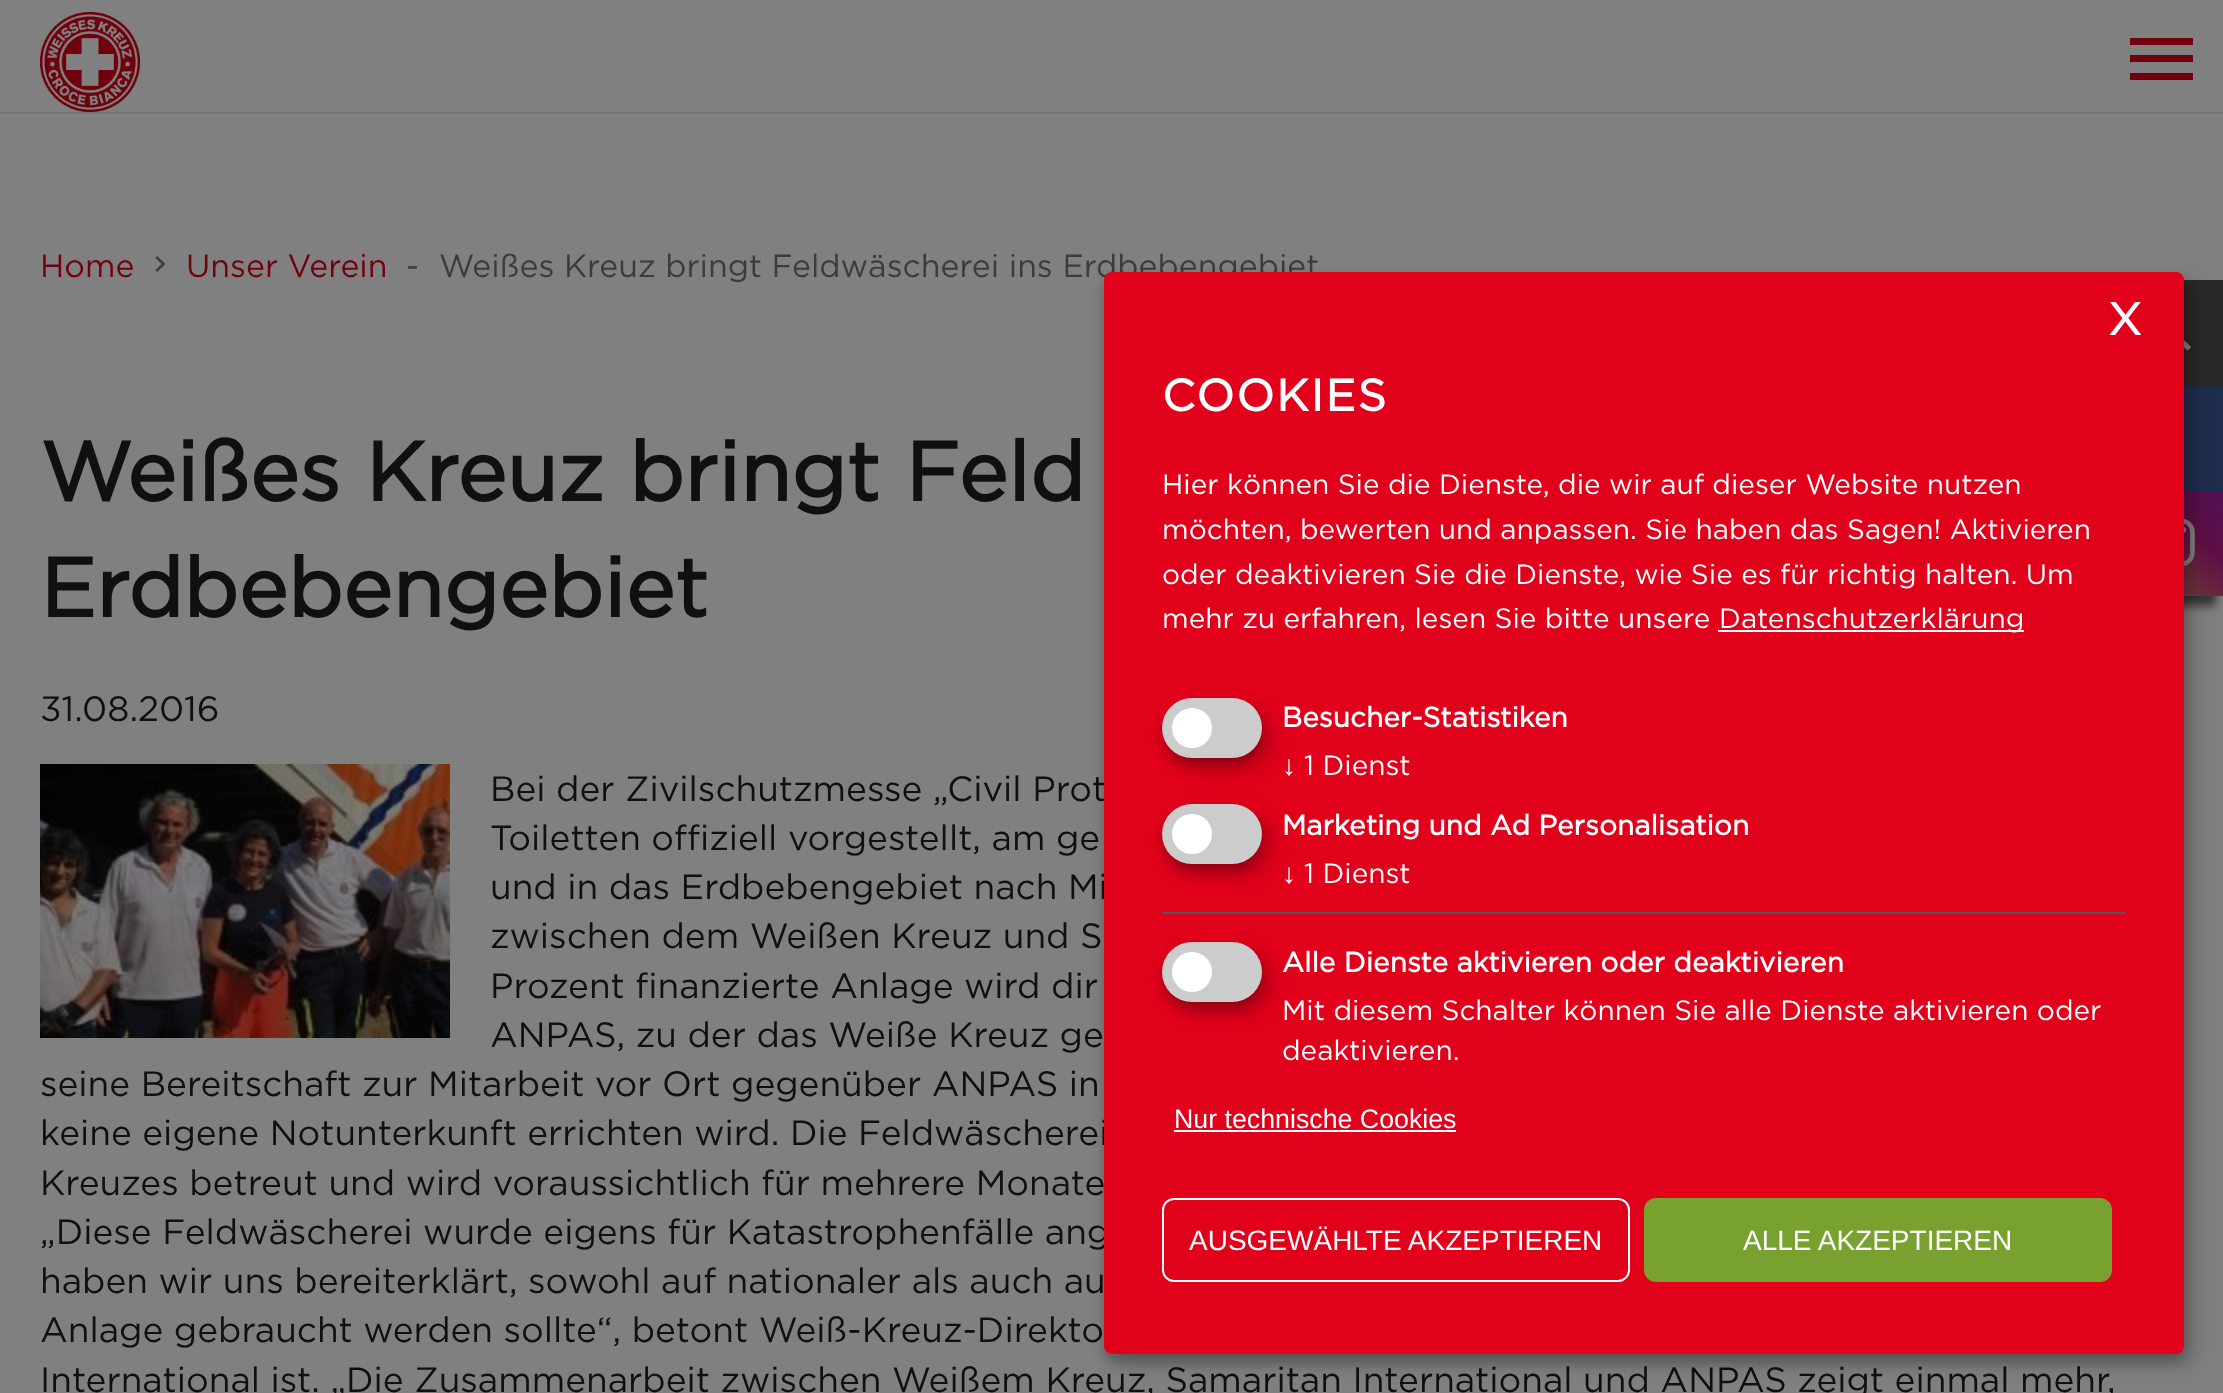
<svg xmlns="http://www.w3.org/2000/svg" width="2223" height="1393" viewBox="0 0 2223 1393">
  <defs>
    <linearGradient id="g1" gradientUnits="userSpaceOnUse" x1="2119" y1="597" x2="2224" y2="492"><stop offset="0" stop-color="rgb(125,99,50)"/><stop offset="0.67" stop-color="rgb(95,14,68)"/><stop offset="1" stop-color="rgb(80,16,84)"/></linearGradient>
  </defs>
  <rect width="100%" height="100%" fill="rgb(128,128,128)"/>
  <rect x="0" y="112" width="2223" height="2" fill="rgb(115,115,115)"/>
  <image x="40" y="12" width="100" height="100" href="pic1.png"/>
  <path d="M2130 38H2193V45H2130ZM2130 55H2193V62H2130ZM2130 73H2193V80H2130Z" fill="rgb(113,1,14)"/>
  <text x="40" y="277" font-family="Gotham" font-size="32" fill="rgb(113,1,14)">Home</text>
  <image x="155" y="256" width="11" height="16" href="pic2.png"/>
  <text x="186" y="277" font-family="Gotham" font-size="32" fill="rgb(113,1,14)">Unser Verein</text>
  <g font-family="Gotham" font-size="32" fill="rgb(60,60,60)">
    <text x="406" y="277">-</text>
    <text x="439" y="277">Weißes Kreuz bringt Feldwäscherei ins Erdbebengebiet</text>
  </g>
  <g font-family="Gotham" font-size="83.25" font-weight="bold" fill="rgb(16,16,16)">
    <text>
      <tspan x="40" y="501">Weißes Kreuz bringt Feld</tspan>
      <tspan x="40" y="617">Erdbebengebiet</tspan>
    </text>
  </g>
  <text x="40" y="721" font-family="Gotham" font-size="35.2" fill="rgb(16,16,16)">31.08.2016</text>
  <image x="40" y="764" width="410" height="274" href="pic3.png"/>
  <g font-family="Gotham" font-size="35.2" fill="rgb(16,16,16)">
    <text>
      <tspan x="490" y="801">Bei der Zivilschutzmesse „Civil Prot</tspan>
      <tspan x="490" y="850">Toiletten offiziell vorgestellt, am ge</tspan>
      <tspan x="490" y="899">und in das Erdbebengebiet nach Mi</tspan>
      <tspan x="490" y="948">zwischen dem Weißen Kreuz und S</tspan>
      <tspan x="490" y="998">Prozent finanzierte Anlage wird dir</tspan>
      <tspan x="490" y="1047">ANPAS, zu der das Weiße Kreuz ge</tspan>
    </text>
    <text>
      <tspan x="40" y="1096">seine Bereitschaft zur Mitarbeit vor Ort gegenüber ANPAS in</tspan>
      <tspan x="40" y="1145">keine eigene Notunterkunft errichten wird. Die Feldwäscherei</tspan>
      <tspan x="40" y="1195">Kreuzes betreut und wird voraussichtlich für mehrere Monate</tspan>
      <tspan x="40" y="1244">„Diese Feldwäscherei wurde eigens für Katastrophenfälle ang</tspan>
      <tspan x="40" y="1293">haben wir uns bereiterklärt, sowohl auf nationaler als auch au</tspan>
      <tspan x="40" y="1342">Anlage gebraucht werden sollte“, betont Weiß-Kreuz-Direkto</tspan>
      <tspan x="40" y="1392">International ist. „Die Zusammenarbeit zwischen Weißem Kreuz, Samaritan International und ANPAS zeigt einmal mehr,</tspan>
    </text>
  </g>
  <rect x="2110" y="290" width="106" height="316" fill="rgb(51,51,51)" filter="blur(5px)"/>
  <rect x="2184" y="280" width="39" height="106" fill="rgb(41,41,41)"/>
  <image x="2184" y="340" width="8" height="11" href="pic4.png"/>
  <rect x="2184" y="386" width="39" height="106" fill="rgb(31,45,77)"/>
  <rect x="2184" y="492" width="39" height="104" fill="url(#g1)"/>
  <image x="2184" y="518" width="11" height="48" href="pic5.png"/>
  <rect x="1114" y="282" width="1080" height="1082" rx="8" fill="rgba(0,0,0,0.19)" filter="blur(10px)"/>
  <rect x="1104" y="280" width="1080" height="1082" rx="8" fill="rgba(0,0,0,0.2)" filter="blur(6px)"/>
  <rect x="1104" y="272" width="1080" height="1082" rx="8" fill="rgb(225,1,27)"/>
  <text x="2107" y="335" font-family="Gotham" font-size="64" fill="rgb(255,255,255)">x</text>
  <text x="1174" y="1128" font-family="Liberation Sans" font-size="26.75" fill="rgb(255,255,255)">Nur technische Cookies</text>
  <rect x="1174" y="1130" width="282" height="2" fill="rgb(255,255,255)"/>
  <rect x="1163" y="1199" width="466" height="82" rx="11" fill="none" stroke="rgb(255,255,255)" stroke-width="2"/>
  <text x="1189" y="1250" font-family="Liberation Sans" font-size="28" fill="rgb(255,255,255)">AUSGEWÄHLTE AKZEPTIEREN</text>
  <rect x="1644" y="1198" width="468" height="84" rx="12" fill="rgb(121,161,47)"/>
  <text x="1743" y="1250" font-family="Liberation Sans" font-size="28" fill="rgb(255,255,255)">ALLE AKZEPTIEREN</text>
  <text x="1162" y="411" font-family="Gotham" font-size="44.75" font-weight="bold" letter-spacing="2" fill="rgb(255,255,255)">COOKIES</text>
  <g font-family="Gotham" font-size="28" fill="rgb(255,255,255)">
    <text>
      <tspan x="1162" y="494">Hier können Sie die Dienste, die wir auf dieser Website nutzen</tspan>
      <tspan x="1162" y="539">möchten, bewerten und anpassen. Sie haben das Sagen! Aktivieren</tspan>
      <tspan x="1162" y="584">oder deaktivieren Sie die Dienste, wie Sie es für richtig halten. Um</tspan>
      <tspan x="1162" y="628">mehr zu erfahren, lesen Sie bitte unsere</tspan>
    </text>
  </g>
  <rect x="1718" y="630" width="306" height="2" fill="rgb(255,255,255)"/>
  <text x="1719" y="628" font-family="Gotham" font-size="28" fill="rgb(255,255,255)">Datenschutzerklärung</text>
  <rect x="1172" y="708" width="100" height="60" rx="30" fill="rgba(0,0,0,0.19)" filter="blur(10px)"/>
  <rect x="1162" y="706" width="100" height="60" rx="30" fill="rgba(0,0,0,0.2)" filter="blur(6px)"/>
  <rect x="1162" y="698" width="100" height="60" rx="30" fill="rgb(204,204,204)"/>
  <circle cx="1192" cy="728" r="20" fill="rgb(255,255,255)"/>
  <text x="1282" y="727" font-family="Gotham" font-size="28" font-weight="bold" fill="rgb(255,255,255)">Besucher-Statistiken</text>
  <text x="1282" y="775" font-family="Liberation Sans" font-size="28" fill="rgb(255,255,255)">↓</text>
  <text x="1304" y="775" font-family="Gotham" font-size="28" fill="rgb(255,255,255)">1 Dienst</text>
  <rect x="1172" y="814" width="100" height="60" rx="30" fill="rgba(0,0,0,0.19)" filter="blur(10px)"/>
  <rect x="1162" y="812" width="100" height="60" rx="30" fill="rgba(0,0,0,0.2)" filter="blur(6px)"/>
  <rect x="1162" y="804" width="100" height="60" rx="30" fill="rgb(204,204,204)"/>
  <circle cx="1192" cy="834" r="20" fill="rgb(255,255,255)"/>
  <text x="1282" y="835" font-family="Gotham" font-size="28" font-weight="bold" fill="rgb(255,255,255)">Marketing und Ad Personalisation</text>
  <text x="1282" y="883" font-family="Liberation Sans" font-size="28" fill="rgb(255,255,255)">↓</text>
  <text x="1304" y="883" font-family="Gotham" font-size="28" fill="rgb(255,255,255)">1 Dienst</text>
  <rect x="1162" y="912" width="964" height="2" fill="rgb(85,85,85)"/>
  <rect x="1172" y="952" width="100" height="60" rx="30" fill="rgba(0,0,0,0.19)" filter="blur(10px)"/>
  <rect x="1162" y="950" width="100" height="60" rx="30" fill="rgba(0,0,0,0.2)" filter="blur(6px)"/>
  <rect x="1162" y="942" width="100" height="60" rx="30" fill="rgb(204,204,204)"/>
  <circle cx="1192" cy="972" r="20" fill="rgb(255,255,255)"/>
  <text x="1282" y="972" font-family="Gotham" font-size="28" font-weight="bold" fill="rgb(255,255,255)">Alle Dienste aktivieren oder deaktivieren</text>
  <g font-family="Gotham" font-size="28" fill="rgb(255,255,255)">
    <text>
      <tspan x="1282" y="1020">Mit diesem Schalter können Sie alle Dienste aktivieren oder</tspan>
      <tspan x="1282" y="1060">deaktivieren.</tspan>
    </text>
  </g>
</svg>
